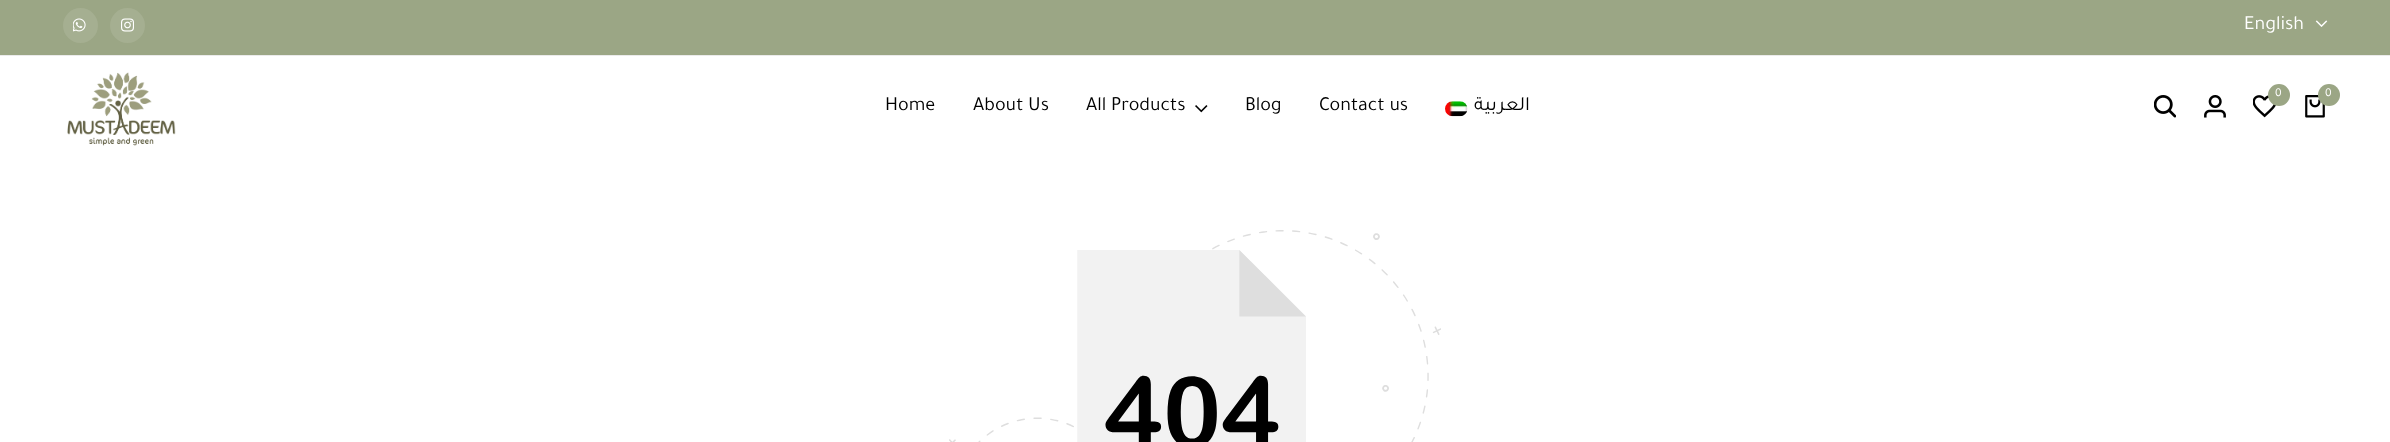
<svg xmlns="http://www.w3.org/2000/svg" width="2390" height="442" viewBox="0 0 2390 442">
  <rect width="100%" height="100%" fill="rgb(255,255,255)"/>
  <rect x="0" y="0" width="2390" height="55" fill="rgb(155,166,133)"/>
  <rect x="0" y="55" width="2390" height="1" fill="rgb(235,235,235)"/>
  <circle cx="80.5" cy="25.5" r="17.5" fill="rgb(165,175,145)"/>
  <image x="73" y="18" width="13" height="14" href="pic1.png"/>
  <circle cx="127.5" cy="25.5" r="17.5" fill="rgb(165,175,145)"/>
  <image x="121" y="18" width="13" height="14" href="pic2.png"/>
  <text x="2244" y="29" font-family="Tajawal" font-size="20" fill="rgb(255,255,255)">English</text>
  <image x="2315" y="20" width="13" height="7" href="pic3.png"/>
  <image x="67" y="72" width="109" height="74" href="pic4.png"/>
  <image x="2253" y="95" width="23" height="23" href="pic5.png"/>
  <circle cx="2279" cy="95" r="11" fill="rgb(155,166,133)"/>
  <text x="2275" y="96" font-family="Tajawal" font-size="12" fill="rgb(255,255,255)">0</text>
  <image x="2305" y="95" width="20" height="23" href="pic6.png"/>
  <circle cx="2329" cy="95" r="11" fill="rgb(155,166,133)"/>
  <text x="2325" y="96" font-family="Tajawal" font-size="12" fill="rgb(255,255,255)">0</text>
  <image x="2154" y="95" width="22" height="23" href="pic7.png"/>
  <image x="2204" y="95" width="22" height="23" href="pic8.png"/>
  <g font-family="Tajawal" font-size="20" fill="rgb(0,0,0)">
    <text x="885" y="110">Home</text>
    <text x="973" y="110">About Us</text>
    <text x="1086" y="110">All Products</text>
  </g>
  <image x="1195" y="105" width="13" height="8" href="pic9.png"/>
  <g font-family="Tajawal" font-size="20" fill="rgb(0,0,0)">
    <text x="1245" y="110">Blog</text>
    <text x="1319" y="110">Contact us</text>
  </g>
  <image x="1445" y="101" width="23" height="16" href="pic10.png"/>
  <text x="1530" y="110" font-family="Tajawal" font-size="20" direction="rtl" fill="rgb(0,0,0)">العربية</text>
  <image x="949" y="230" width="492" height="212" href="pic11.png"/>
</svg>
